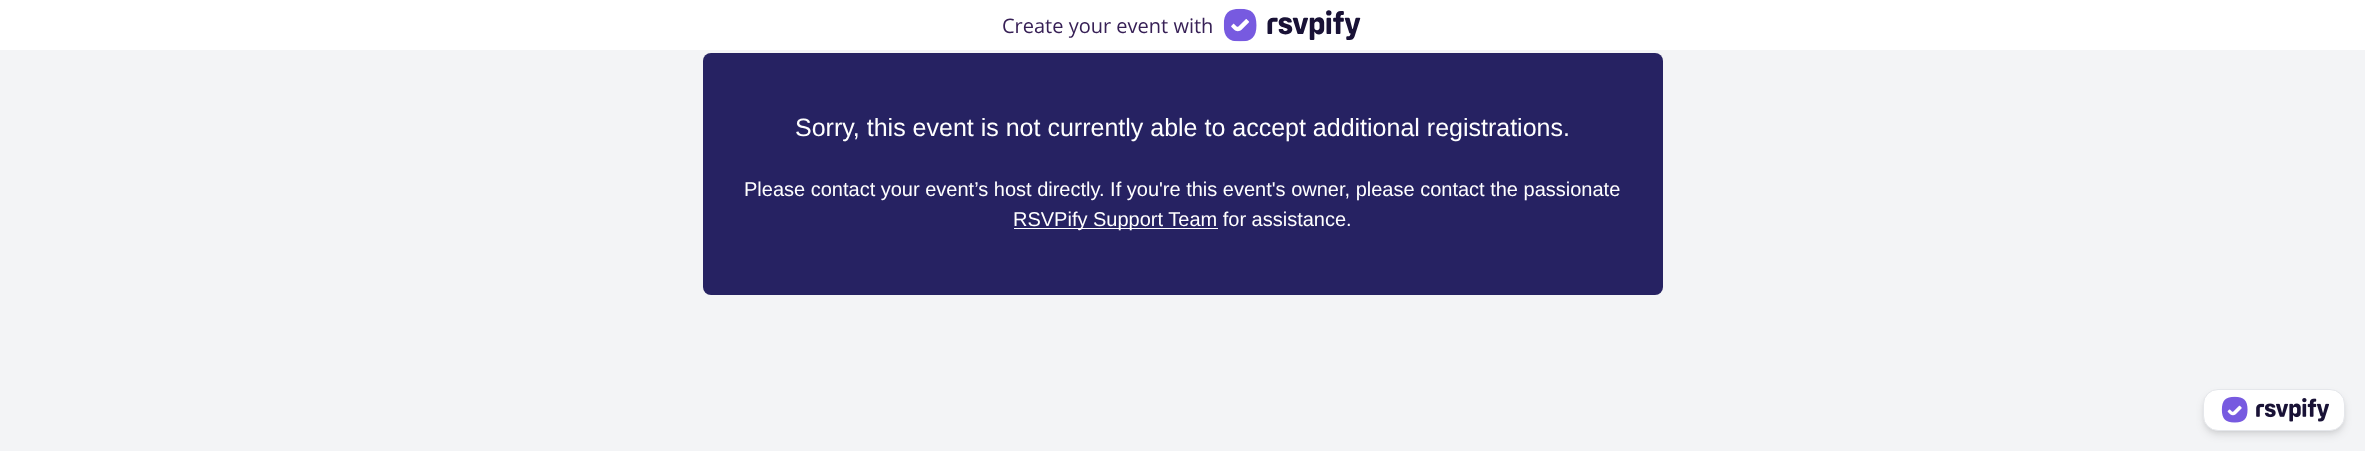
<svg xmlns="http://www.w3.org/2000/svg" width="2365" height="451" viewBox="0 0 2365 451">
  <rect width="100%" height="100%" fill="rgb(243,244,246)"/>
  <rect x="0" y="0" width="2365" height="50" fill="rgb(255,255,255)"/>
  <text x="1002" y="33" font-family="Open Sans" font-size="20" fill="rgb(55,32,86)">Create your event with</text>
  <image x="1223" y="8" width="138" height="34" href="pic1.png"/>
  <rect x="703" y="53" width="960" height="242" rx="8" fill="rgb(38,34,98)"/>
  <text x="795" y="136" font-family="Liberation Sans" font-size="25" fill="rgb(255,255,255)">Sorry, this event is not currently able to accept additional registrations.</text>
  <text x="744" y="196" font-family="Liberation Sans" font-size="20" fill="rgb(255,255,255)">Please contact your event’s host directly. If you're this event's owner, please contact the passionate</text>
  <rect x="1014" y="228" width="204" height="1" fill="rgb(255,255,255)"/>
  <text x="1013" y="226" font-family="Liberation Sans" font-size="20" fill="rgb(255,255,255)">RSVPify Support Team for assistance.</text>
  <rect x="2205" y="394" width="138" height="37" rx="13" fill="rgba(0,0,0,0.1)" filter="blur(2.5px)"/>
  <rect x="2204" y="395" width="140" height="40" rx="14" fill="rgba(0,0,0,0.1)" filter="blur(4px)"/>
  <rect x="2203.5" y="389.5" width="141" height="41" rx="14.5" fill="rgb(255,255,255)" stroke="rgb(229,231,235)"/>
  <image x="2221" y="396" width="108" height="27" href="pic2.png"/>
</svg>
